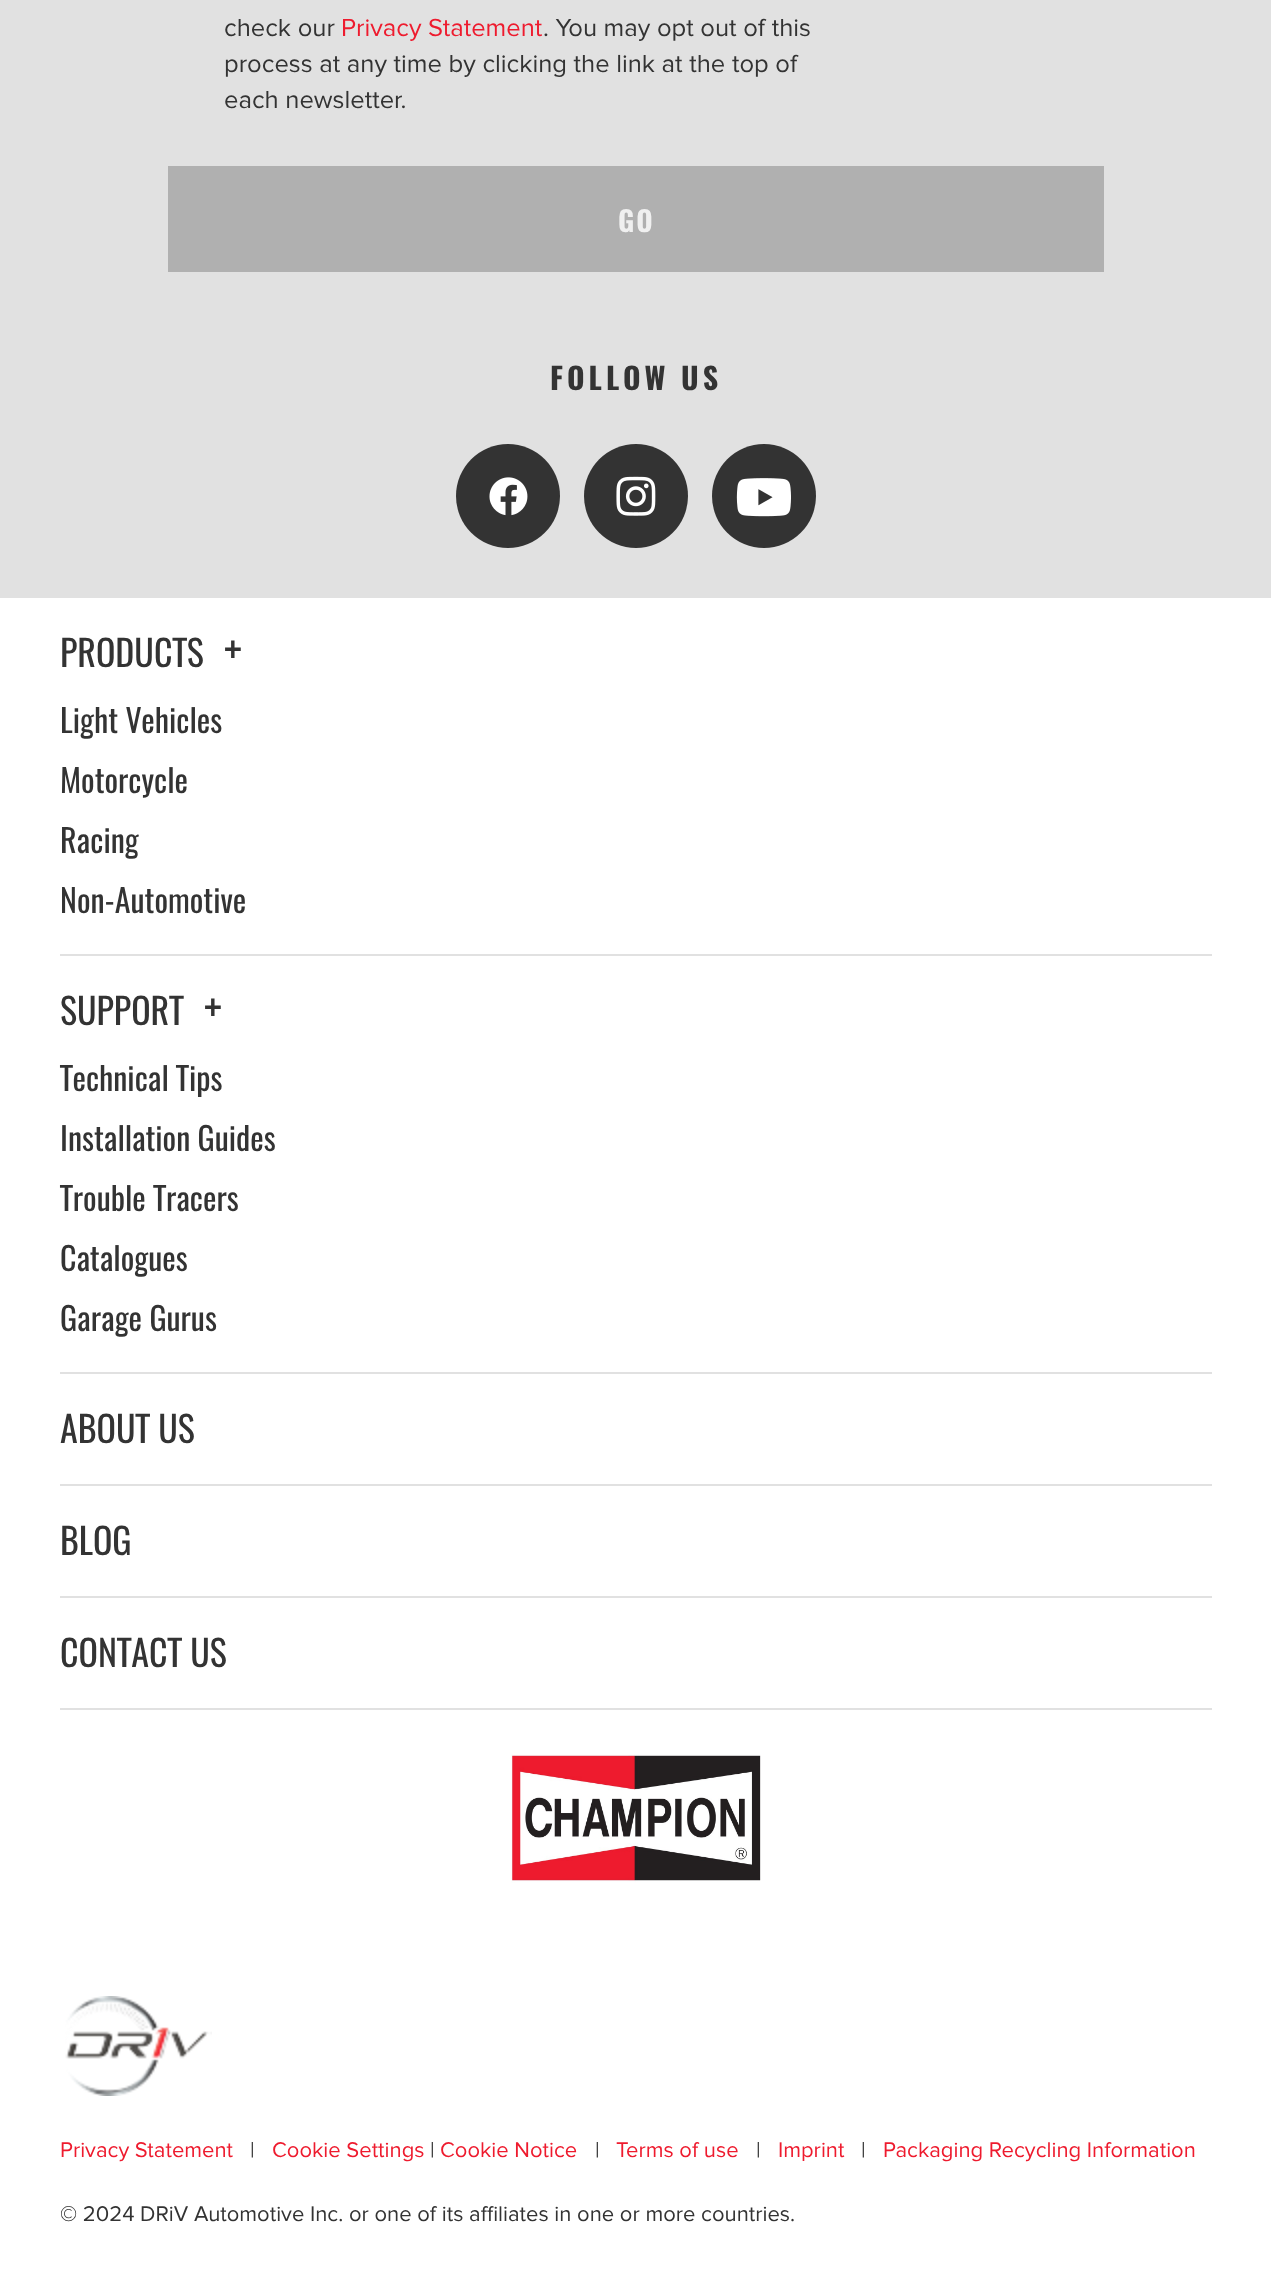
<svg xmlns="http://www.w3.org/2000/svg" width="1271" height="2287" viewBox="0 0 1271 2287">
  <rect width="100%" height="100%" fill="rgb(255,255,255)"/>
  <rect x="0" y="0" width="1271" height="598" fill="rgb(225,225,225)"/>
  <text x="224" y="36" font-family="Proxima Nova" font-size="25.6" fill="rgb(51,51,51)">check our</text>
  <text x="341" y="36" font-family="Proxima Nova" font-size="25.6" fill="rgb(238,27,46)">Privacy Statement</text>
  <g font-family="Proxima Nova" font-size="25.6" fill="rgb(51,51,51)">
    <text x="543" y="36">. You may opt out of this</text>
    <text>
      <tspan x="224" y="72">process at any time by clicking the link at the top of</tspan>
      <tspan x="224" y="108">each newsletter.</tspan>
    </text>
  </g>
  <rect x="168" y="166" width="936" height="106" fill="rgb(176,176,176)"/>
  <text x="618" y="232" font-family="Oswald" font-size="28" font-weight="bold" letter-spacing="2" fill="rgb(240,240,240)">GO</text>
  <text x="550" y="390" font-family="Oswald" font-size="30" font-weight="bold" letter-spacing="4" fill="rgb(51,51,51)">FOLLOW US</text>
  <circle cx="508" cy="496" r="52" fill="rgb(51,51,51)"/>
  <image x="489" y="477" width="39" height="39" href="pic1.png"/>
  <circle cx="636" cy="496" r="52" fill="rgb(51,51,51)"/>
  <image x="616" y="476" width="40" height="40" href="pic2.png"/>
  <circle cx="764" cy="496" r="52" fill="rgb(51,51,51)"/>
  <image x="736" y="478" width="55" height="39" href="pic3.png"/>
  <rect x="60" y="954" width="1152" height="2" fill="rgb(225,225,225)"/>
  <text x="60" y="667" font-family="Oswald" font-size="36" fill="rgb(51,51,51)">PRODUCTS</text>
  <text x="224" y="667" font-family="Oswald" font-size="43" fill="rgb(51,51,51)">+</text>
  <g font-family="Oswald" font-size="32" fill="rgb(51,51,51)">
    <text>
      <tspan x="60" y="733">Light Vehicles</tspan>
      <tspan x="60" y="793">Motorcycle</tspan>
      <tspan x="60" y="853">Racing</tspan>
      <tspan x="60" y="913">Non-Automotive</tspan>
    </text>
  </g>
  <rect x="60" y="1372" width="1152" height="2" fill="rgb(225,225,225)"/>
  <text x="60" y="1025" font-family="Oswald" font-size="36" fill="rgb(51,51,51)">SUPPORT</text>
  <text x="204" y="1025" font-family="Oswald" font-size="43" fill="rgb(51,51,51)">+</text>
  <g font-family="Oswald" font-size="32" fill="rgb(51,51,51)">
    <text>
      <tspan x="60" y="1091">Technical Tips</tspan>
      <tspan x="60" y="1151">Installation Guides</tspan>
      <tspan x="60" y="1211">Trouble Tracers</tspan>
      <tspan x="60" y="1271">Catalogues</tspan>
      <tspan x="60" y="1331">Garage Gurus</tspan>
    </text>
  </g>
  <rect x="60" y="1484" width="1152" height="2" fill="rgb(225,225,225)"/>
  <text x="60" y="1443" font-family="Oswald" font-size="36" fill="rgb(51,51,51)">ABOUT US</text>
  <rect x="60" y="1596" width="1152" height="2" fill="rgb(225,225,225)"/>
  <text x="60" y="1555" font-family="Oswald" font-size="36" fill="rgb(51,51,51)">BLOG</text>
  <rect x="60" y="1708" width="1152" height="2" fill="rgb(225,225,225)"/>
  <text x="60" y="1667" font-family="Oswald" font-size="36" fill="rgb(51,51,51)">CONTACT US</text>
  <image x="511" y="1754" width="250" height="129" href="pic4.png"/>
  <image x="65" y="1996" width="147" height="100" href="pic5.png"/>
  <text x="60" y="2157" font-family="Proxima Nova" font-size="22" fill="rgb(238,27,46)">Privacy Statement</text>
  <text x="250" y="2157" font-family="Proxima Nova" font-size="22" fill="rgb(51,51,51)">|</text>
  <text x="272" y="2157" font-family="Proxima Nova" font-size="22" fill="rgb(238,27,46)">Cookie Settings</text>
  <text x="430" y="2157" font-family="Proxima Nova" font-size="22" fill="rgb(51,51,51)">|</text>
  <text x="440" y="2157" font-family="Proxima Nova" font-size="22" fill="rgb(238,27,46)">Cookie Notice</text>
  <text x="595" y="2157" font-family="Proxima Nova" font-size="22" fill="rgb(51,51,51)">|</text>
  <text x="616" y="2157" font-family="Proxima Nova" font-size="22" fill="rgb(238,27,46)">Terms of use</text>
  <text x="756" y="2157" font-family="Proxima Nova" font-size="22" fill="rgb(51,51,51)">|</text>
  <text x="778" y="2157" font-family="Proxima Nova" font-size="22" fill="rgb(238,27,46)">Imprint</text>
  <text x="861" y="2157" font-family="Proxima Nova" font-size="22" fill="rgb(51,51,51)">|</text>
  <text x="883" y="2157" font-family="Proxima Nova" font-size="22" fill="rgb(238,27,46)">Packaging Recycling Information</text>
  <text x="60" y="2221" font-family="Proxima Nova" font-size="22" fill="rgb(51,51,51)">© 2024 DRiV Automotive Inc. or one of its affiliates in one or more countries.</text>
</svg>
